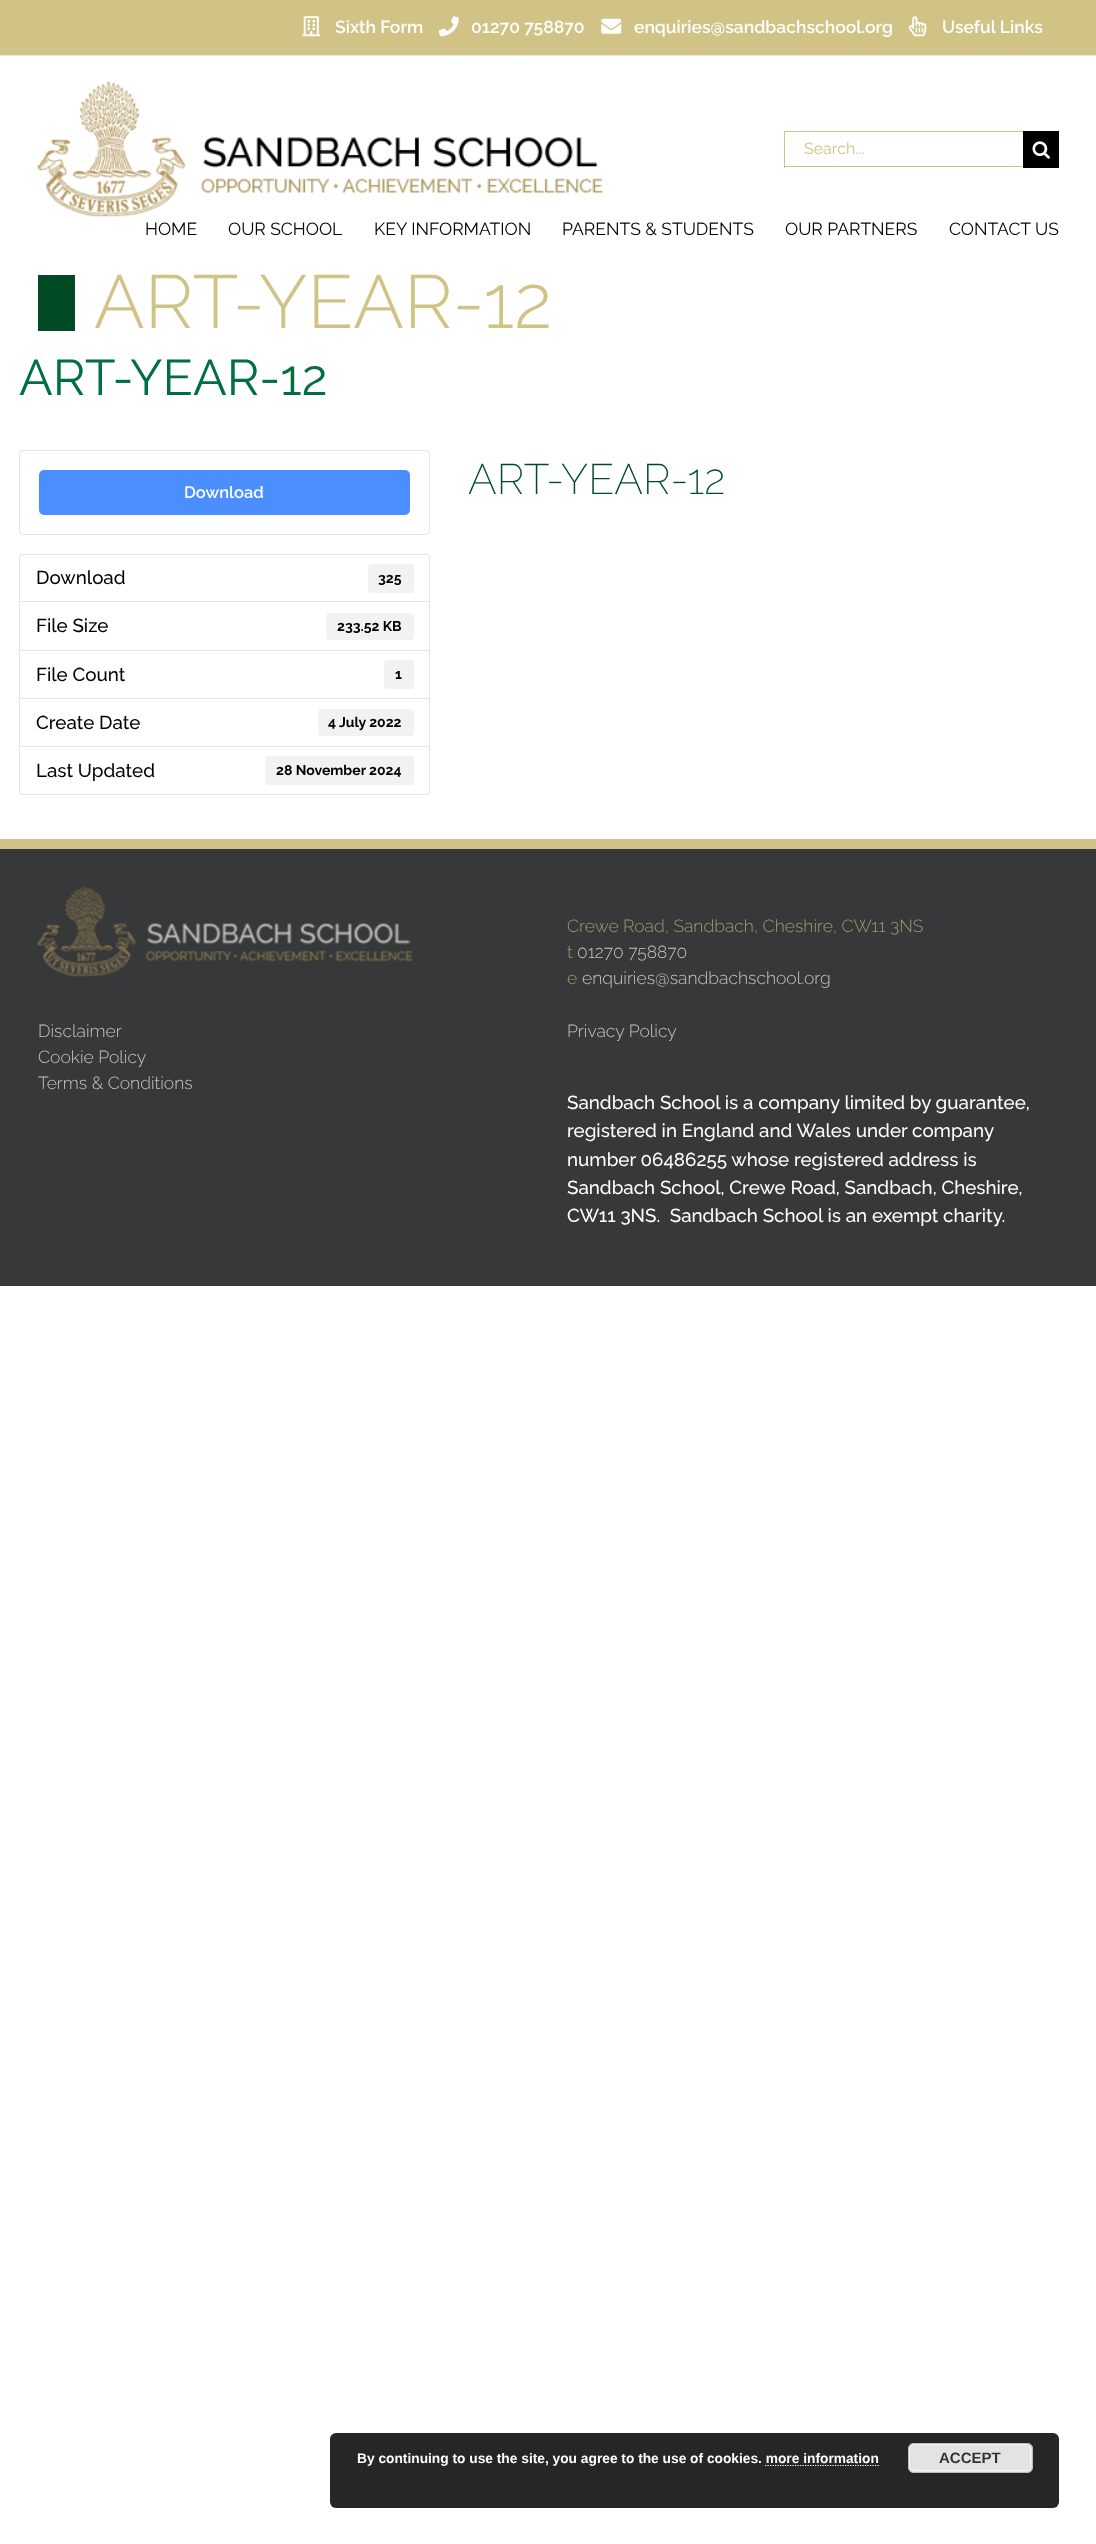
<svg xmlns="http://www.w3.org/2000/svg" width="1096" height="2544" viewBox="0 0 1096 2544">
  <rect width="100%" height="100%" fill="rgb(255,255,255)"/>
  <rect x="0" y="0" width="1096" height="55" fill="rgb(209,195,134)"/>
  <rect x="0" y="55" width="1096" height="1" fill="rgb(229,229,229)"/>
  <image x="302" y="16" width="18" height="21" href="pic1.png"/>
  <text x="335" y="33" font-family="Raleway" font-size="17.5" font-weight="600" fill="rgb(255,255,255)">Sixth Form</text>
  <image x="438" y="16" width="21" height="21" href="pic2.png"/>
  <text x="471" y="33" font-family="Raleway" font-size="17.5" font-weight="600" fill="rgb(255,255,255)">01270 758870</text>
  <image x="601" y="18" width="21" height="16" href="pic3.png"/>
  <text x="634" y="33" font-family="Raleway" font-size="17.5" font-weight="600" fill="rgb(255,255,255)">enquiries@sandbachschool.org</text>
  <image x="908" y="16" width="19" height="21" href="pic4.png"/>
  <text x="942" y="33" font-family="Raleway" font-size="17.5" font-weight="600" fill="rgb(255,255,255)">Useful Links</text>
  <image x="37" y="81" width="566" height="136" href="pic5.png"/>
  <rect x="784" y="131" width="239" height="1" fill="rgb(209,195,134)"/>
  <rect x="784" y="166" width="239" height="1" fill="rgb(209,195,134)"/>
  <rect x="784" y="131" width="1" height="37" fill="rgb(209,195,134)"/>
  <text x="804" y="154" font-family="Raleway" font-size="16" fill="rgb(209,195,134)">Search...</text>
  <rect x="1023" y="131" width="36" height="37" fill="rgb(0,0,0)"/>
  <image x="1032" y="141" width="18" height="18" href="pic6.png"/>
  <g font-family="Raleway" font-size="17.5" fill="rgb(0,0,0)">
    <text x="145" y="235">HOME</text>
    <text x="228" y="235">OUR SCHOOL</text>
    <text x="374" y="235">KEY INFORMATION</text>
    <text x="562" y="235">PARENTS &amp; STUDENTS</text>
    <text x="785" y="235">OUR PARTNERS</text>
    <text x="949" y="235">CONTACT US</text>
  </g>
  <rect x="38" y="275" width="37" height="56" fill="rgb(0,75,36)"/>
  <text x="94" y="328" font-family="Raleway" font-size="75" font-weight="300" fill="rgb(209,195,134)">ART-YEAR-12</text>
  <text x="19" y="395" font-family="Raleway" font-size="50" fill="rgb(0,112,65)">ART-YEAR-12</text>
  <text x="468" y="494" font-family="Raleway" font-size="42.5" font-weight="200" fill="rgb(0,75,36)">ART-YEAR-12</text>
  <rect x="19.5" y="450.5" width="410" height="84" rx="3.5" fill="none" stroke="rgb(229,229,229)"/>
  <rect x="39" y="470" width="371" height="45" rx="5" fill="rgb(74,142,255)"/>
  <text x="184" y="498" font-family="Raleway" font-size="16.5" font-weight="600" fill="rgb(255,255,255)">Download</text>
  <path d="M22 554.5H427C428.5 554.5 429.5 555.5 429.5 557V602.5H19.5V557C19.5 555.5 20.5 554.5 22 554.5Z" fill="none" stroke="rgb(229,229,229)"/>
  <text x="36" y="584" font-family="Raleway" font-size="18.75" font-weight="500" fill="rgb(0,0,0)">Download</text>
  <rect x="368" y="564" width="46" height="29" rx="4" fill="rgb(242,242,242)"/>
  <text x="378" y="583" font-family="Raleway" font-size="14" font-weight="bold" fill="rgb(0,0,0)">325</text>
  <rect x="20" y="602" width="409" height="1" fill="rgb(255,255,255)"/>
  <rect x="19.5" y="601.5" width="410" height="49" fill="none" stroke="rgb(229,229,229)"/>
  <text x="36" y="632" font-family="Raleway" font-size="18.75" font-weight="500" fill="rgb(0,0,0)">File Size</text>
  <rect x="326" y="613" width="88" height="27" rx="4" fill="rgb(242,242,242)"/>
  <text x="337" y="631" font-family="Raleway" font-size="14" font-weight="bold" fill="rgb(0,0,0)">233.52 KB</text>
  <rect x="19.5" y="650.5" width="410" height="48" fill="none" stroke="rgb(229,229,229)"/>
  <text x="36" y="681" font-family="Raleway" font-size="18.75" font-weight="500" fill="rgb(0,0,0)">File Count</text>
  <rect x="384" y="660" width="30" height="29" rx="4" fill="rgb(242,242,242)"/>
  <text x="395" y="679" font-family="Raleway" font-size="14" font-weight="bold" fill="rgb(0,0,0)">1</text>
  <rect x="19.5" y="698.5" width="410" height="49" fill="none" stroke="rgb(229,229,229)"/>
  <text x="36" y="729" font-family="Raleway" font-size="18.75" font-weight="500" fill="rgb(0,0,0)">Create Date</text>
  <rect x="318" y="709" width="96" height="27" rx="4" fill="rgb(242,242,242)"/>
  <text x="328" y="727" font-family="Raleway" font-size="14" font-weight="bold" fill="rgb(0,0,0)">4 July 2022</text>
  <path d="M19.5 746.5H429.5V792C429.5 793.5 428.5 794.5 427 794.5H22C20.5 794.5 19.5 793.5 19.5 792Z" fill="rgb(255,255,255)" stroke="rgb(229,229,229)"/>
  <text x="36" y="777" font-family="Raleway" font-size="18.75" font-weight="500" fill="rgb(0,0,0)">Last Updated</text>
  <rect x="265" y="756" width="149" height="29" rx="4" fill="rgb(242,242,242)"/>
  <text x="276" y="775" font-family="Raleway" font-size="14" font-weight="bold" fill="rgb(0,0,0)">28 November 2024</text>
  <rect x="0" y="849" width="1096" height="437" fill="rgb(54,56,57)"/>
  <rect x="0" y="839" width="1096" height="10" fill="rgb(209,195,134)"/>
  <image x="37" y="886" width="376" height="91" href="pic7.png"/>
  <g font-family="Raleway" font-size="17.5" font-weight="300" fill="rgb(163,153,111)">
    <text>
      <tspan x="567" y="932">Crewe Road, Sandbach, Cheshire, CW11 3NS</tspan>
      <tspan x="567" y="958">t</tspan>
    </text>
  </g>
  <text x="577" y="958" font-family="Raleway" font-size="17.5" font-weight="300" fill="rgb(195,195,196)">01270 758870</text>
  <text x="567" y="984" font-family="Raleway" font-size="17.5" font-weight="300" fill="rgb(163,153,111)">e</text>
  <g font-family="Raleway" font-size="17.5" font-weight="300" fill="rgb(195,195,196)">
    <text x="582" y="984">enquiries@sandbachschool.org</text>
    <text>
      <tspan x="38" y="1037">Disclaimer</tspan>
      <tspan x="38" y="1063">Cookie Policy</tspan>
      <tspan x="38" y="1089">Terms &amp; Conditions</tspan>
    </text>
    <text x="567" y="1037">Privacy Policy</text>
  </g>
  <g font-family="Raleway" font-size="18.75" font-weight="500" fill="rgb(255,255,255)">
    <text xml:space="preserve"><tspan x="567" y="1109">Sandbach School is a company limited by guarantee,</tspan><tspan x="567" y="1137">registered in England and Wales under company</tspan><tspan x="567" y="1166">number 06486255 whose registered address is</tspan><tspan x="567" y="1194">Sandbach School, Crewe Road, Sandbach, Cheshire,</tspan><tspan x="567" y="1222">CW11 3NS.  Sandbach School is an exempt charity.</tspan></text>
  </g>
  <rect x="330" y="2433" width="729" height="75" rx="6" fill="rgb(38,38,38)"/>
  <text x="357" y="2463" font-family="Liberation Sans" font-size="13.75" font-weight="bold" fill="rgb(255,255,255)">By continuing to use the site, you agree to the use of cookies. more information</text>
  <rect x="908" y="2443" width="125" height="30" rx="6" fill="rgb(227,227,227)"/>
  <rect x="909.5" y="2444.5" width="121" height="26" rx="4.5" fill="none" stroke="rgb(246,246,246)"/>
  <rect x="908.5" y="2443.5" width="124" height="29" rx="5.5" fill="none" stroke="rgb(187,187,187)"/>
  <text x="939" y="2463" font-family="Liberation Sans" font-size="15" font-weight="bold" fill="rgb(51,51,51)">ACCEPT</text>
  <path d="M765 2465.5H879" fill="none" stroke="rgb(255,255,255)" stroke-width="1.2" stroke-dasharray="1.25 1.25"/>
</svg>
